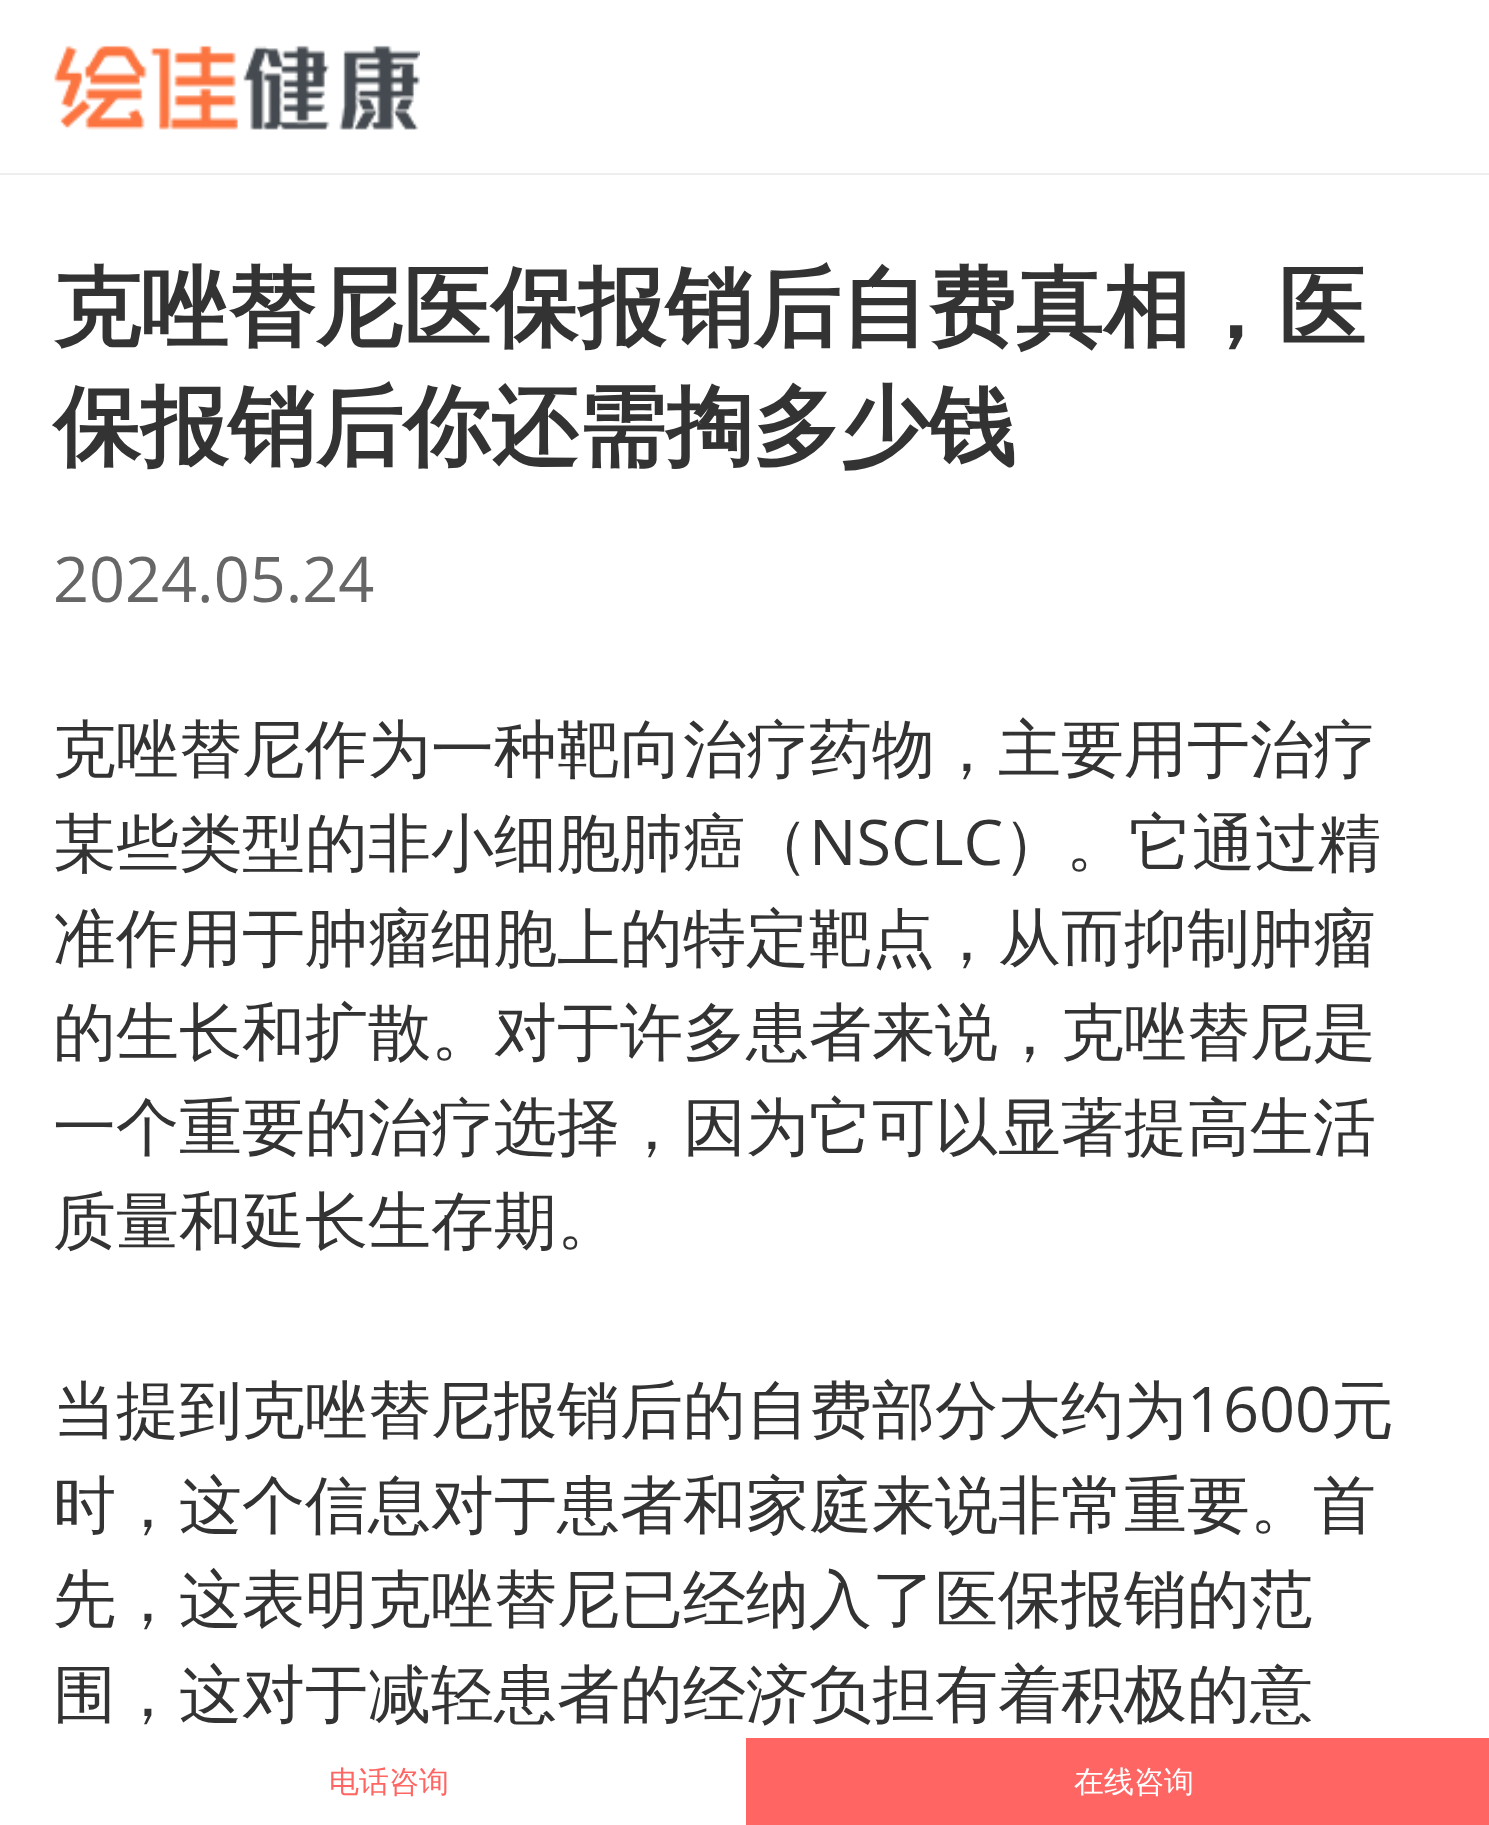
<svg xmlns="http://www.w3.org/2000/svg" width="1489" height="1825" viewBox="0 0 1489 1825">
  <rect width="100%" height="100%" fill="rgb(255,255,255)"/>
  <rect x="0" y="173" width="1489" height="2" fill="rgb(238,238,238)"/>
  <image x="54" y="45" width="366" height="85" href="pic1.png"/>
  <g font-family="WenQuanYi Zen Hei" font-size="87.5" font-weight="bold" fill="rgb(51,51,51)">
    <text>
      <tspan x="53" y="338">克唑替尼医保报销后自费真相，医</tspan>
      <tspan x="53" y="457">保报销后你还需掏多少钱</tspan>
    </text>
  </g>
  <text x="53" y="602" font-family="Open Sans" font-size="63" fill="rgb(102,102,102)">2024.05.24</text>
  <g font-family="WenQuanYi Zen Hei" font-size="63" font-weight="500" fill="rgb(51,51,51)">
    <text>
      <tspan x="53" y="771">克唑替尼作为一种靶向治疗药物，主要用于治疗</tspan>
      <tspan x="53" y="865">某些类型的非小细胞肺癌（</tspan>
    </text>
  </g>
  <text x="809" y="865" font-family="Open Sans" font-size="63" fill="rgb(51,51,51)">NSCLC</text>
  <g font-family="WenQuanYi Zen Hei" font-size="63" font-weight="500" fill="rgb(51,51,51)">
    <text x="1003" y="865">）。它通过精</text>
    <text>
      <tspan x="53" y="960">准作用于肿瘤细胞上的特定靶点，从而抑制肿瘤</tspan>
      <tspan x="53" y="1054">的生长和扩散。对于许多患者来说，克唑替尼是</tspan>
      <tspan x="53" y="1149">一个重要的治疗选择，因为它可以显著提高生活</tspan>
      <tspan x="53" y="1243">质量和延长生存期。</tspan>
    </text>
    <text x="53" y="1432">当提到克唑替尼报销后的自费部分大约为</text>
  </g>
  <text x="1187" y="1432" font-family="Open Sans" font-size="63" fill="rgb(51,51,51)">1600</text>
  <g font-family="WenQuanYi Zen Hei" font-size="63" font-weight="500" fill="rgb(51,51,51)">
    <text x="1331" y="1432">元</text>
    <text>
      <tspan x="53" y="1527">时，这个信息对于患者和家庭来说非常重要。首</tspan>
      <tspan x="53" y="1621">先，这表明克唑替尼已经纳入了医保报销的范</tspan>
      <tspan x="53" y="1716">围，这对于减轻患者的经济负担有着积极的意</tspan>
    </text>
  </g>
  <text x="329" y="1792" font-family="WenQuanYi Zen Hei" font-size="30" font-weight="500" fill="rgb(255,101,98)">电话咨询</text>
  <rect x="746" y="1738" width="743" height="87" fill="rgb(255,101,98)"/>
  <text x="1074" y="1792" font-family="WenQuanYi Zen Hei" font-size="30" font-weight="500" fill="rgb(255,255,255)">在线咨询</text>
</svg>
